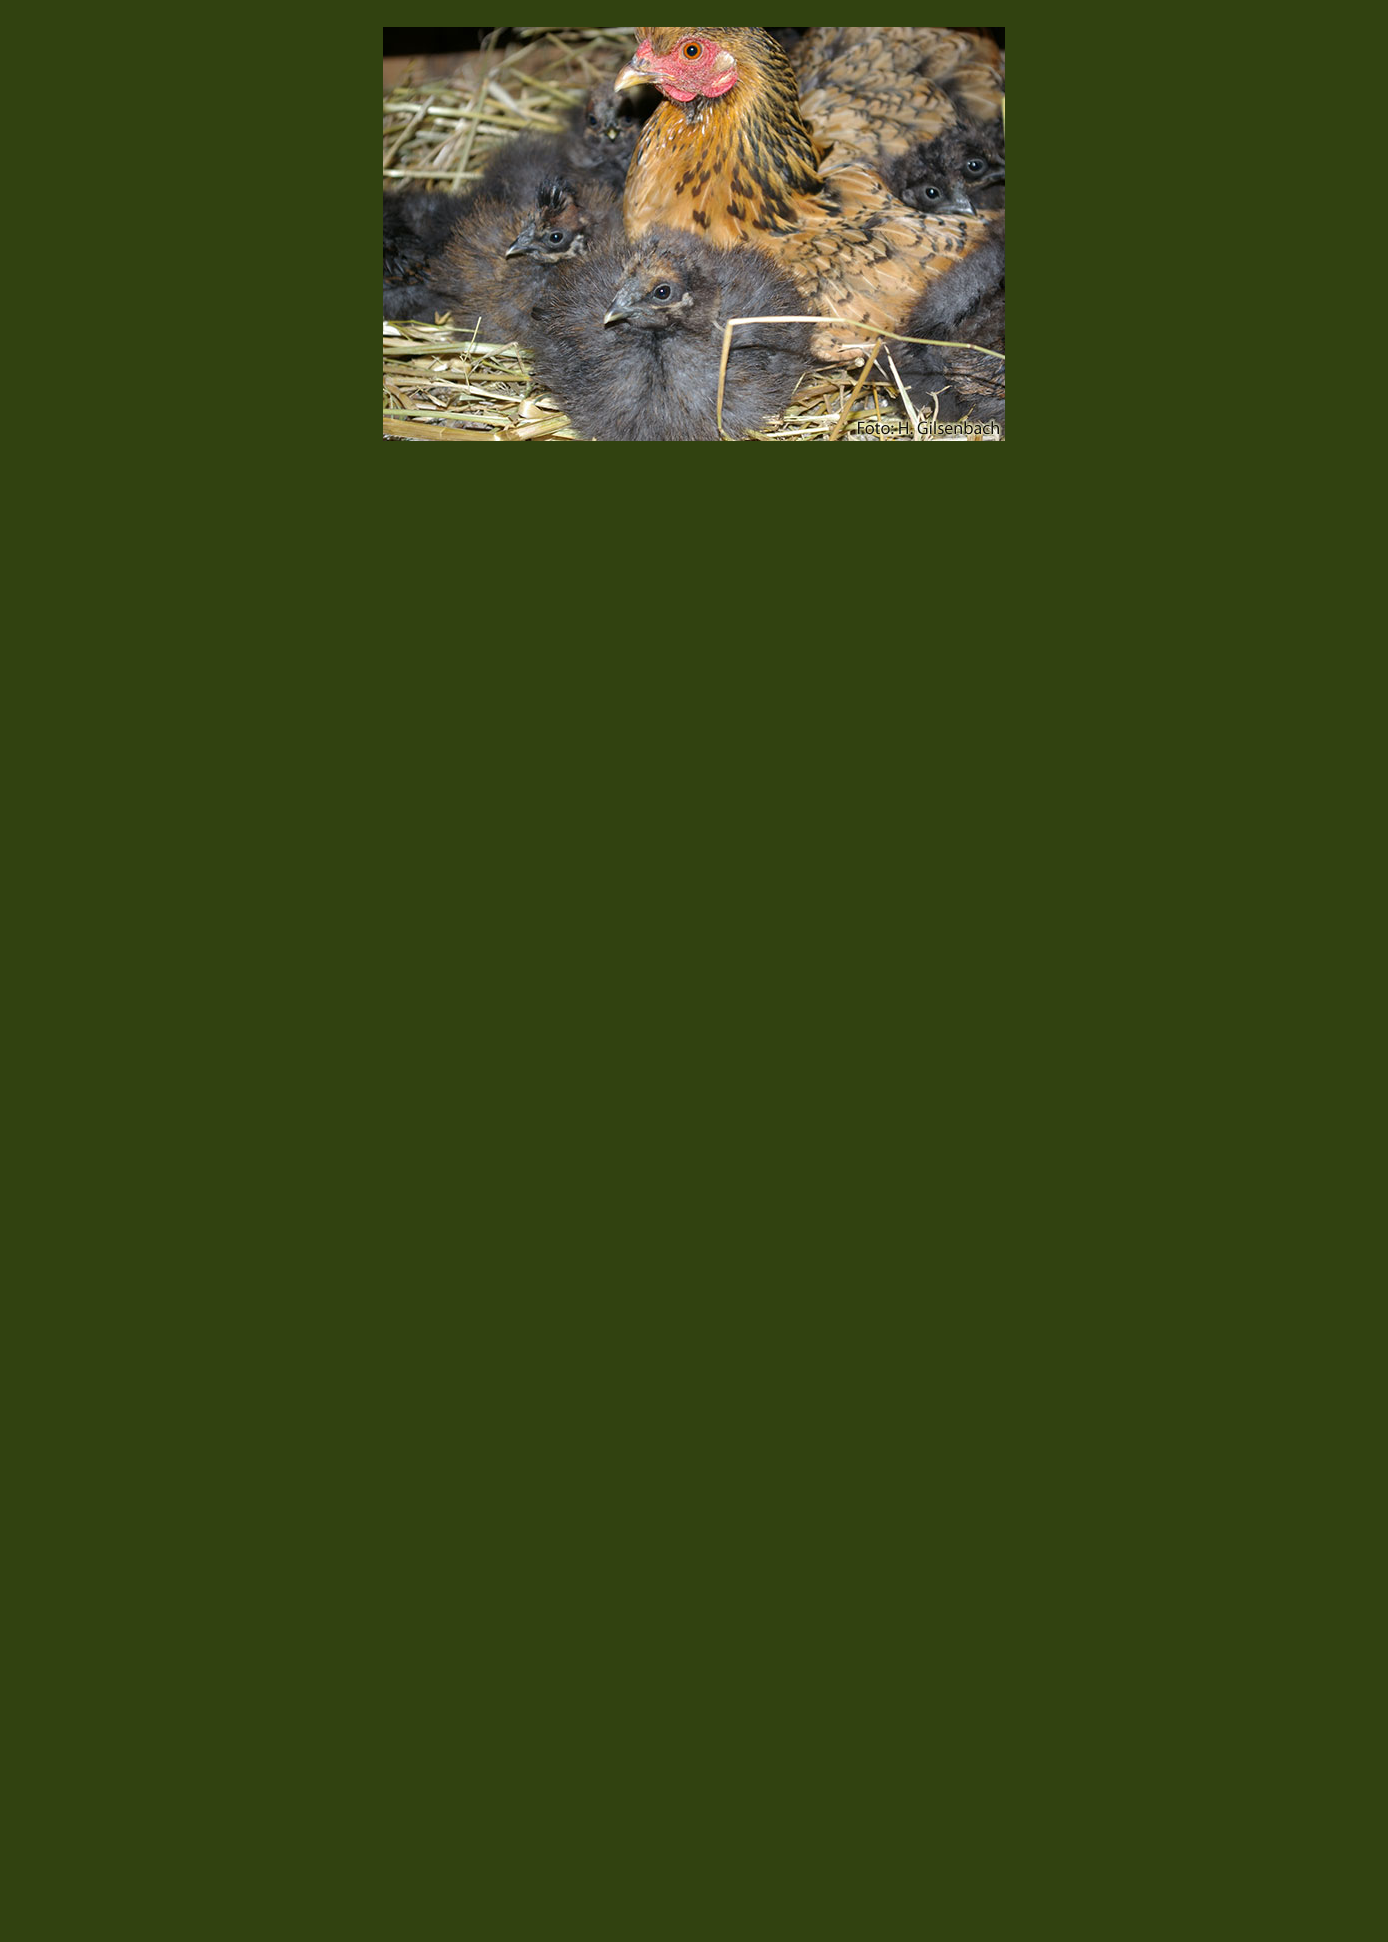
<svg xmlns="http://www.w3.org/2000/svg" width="1388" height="1942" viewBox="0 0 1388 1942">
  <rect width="100%" height="100%" fill="rgb(49,66,16)"/>
  <image x="383" y="27" width="622" height="414" href="pic1.png"/>
</svg>
